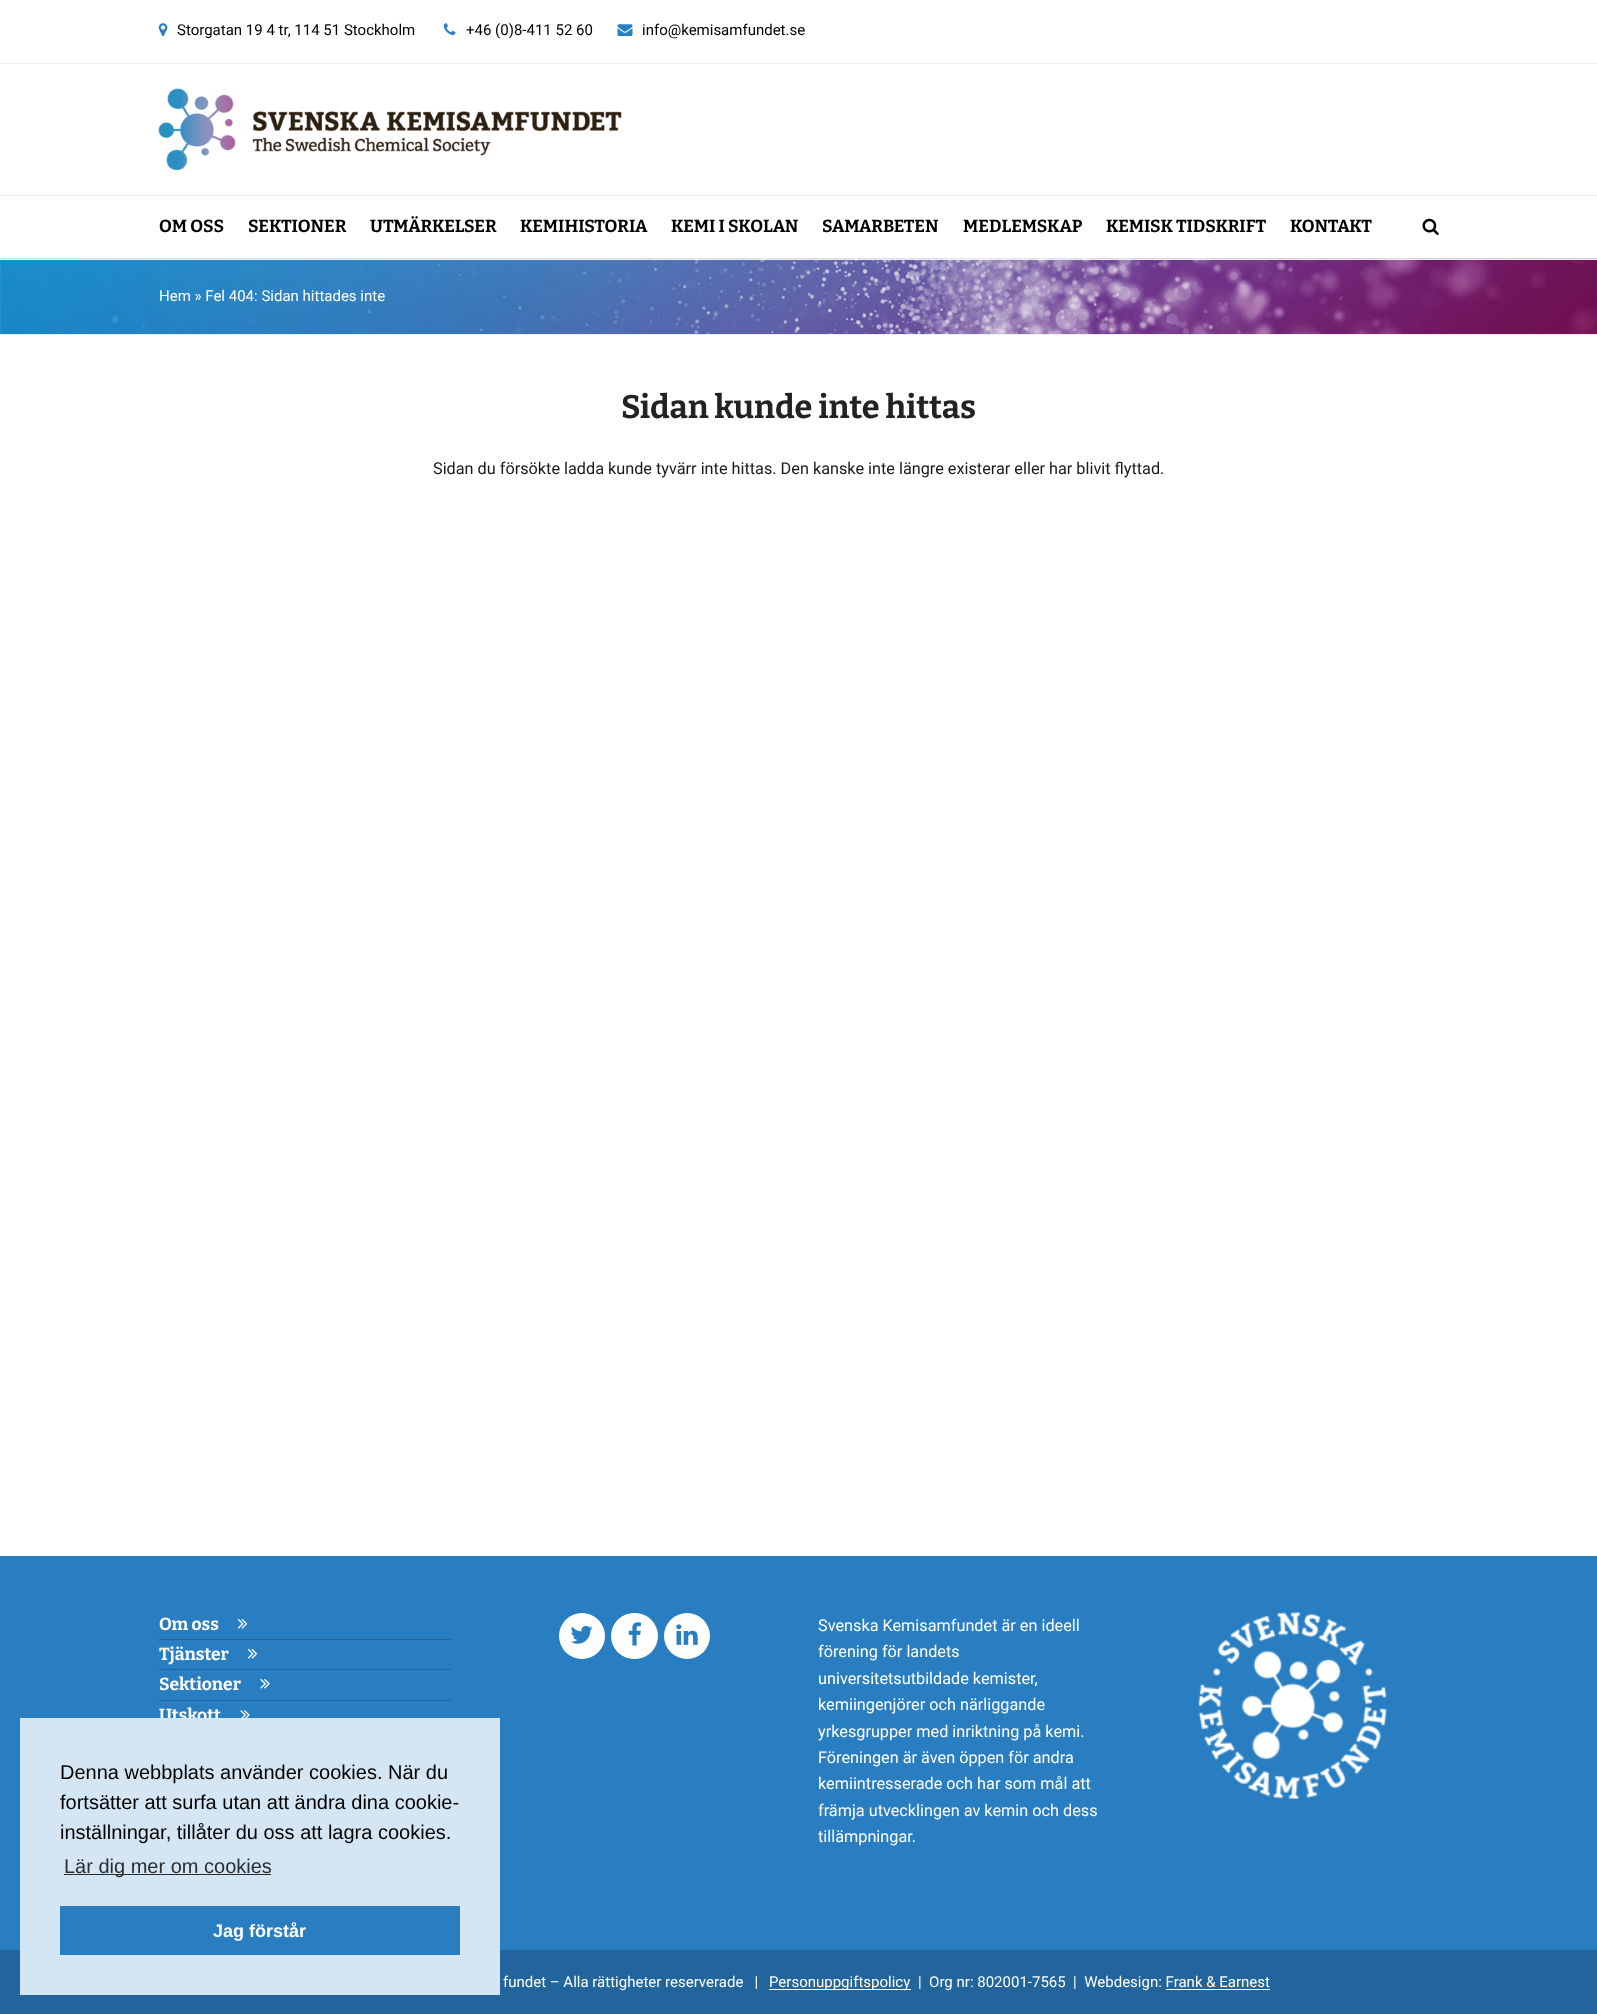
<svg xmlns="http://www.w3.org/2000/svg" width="1597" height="2014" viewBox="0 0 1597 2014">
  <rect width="100%" height="100%" fill="rgb(255,255,255)"/>
  <rect x="0" y="63" width="1597" height="1" fill="rgb(238,238,238)"/>
  <image x="158" y="23" width="10" height="13" href="pic1.png"/>
  <text x="177" y="35" font-family="Roboto" font-size="15" fill="rgb(0,0,0)">Storgatan 19 4 tr, 114 51 Stockholm</text>
  <image x="443" y="23" width="13" height="12" href="pic2.png"/>
  <text x="466" y="35" font-family="Roboto" font-size="15" fill="rgb(0,0,0)">+46 (0)8-411 52 60</text>
  <image x="617" y="24" width="16" height="13" href="pic3.png"/>
  <text x="642" y="35" font-family="Roboto" font-size="15" fill="rgb(0,0,0)">info@kemisamfundet.se</text>
  <image x="158" y="88" width="464" height="82" href="pic4.png"/>
  <rect x="0" y="195" width="1597" height="1" fill="rgb(238,238,238)"/>
  <g font-family="Bitter" font-size="17.5" font-weight="bold" fill="rgb(0,0,0)">
    <text x="159" y="232">OM OSS</text>
    <text x="248" y="232">SEKTIONER</text>
    <text x="370" y="232">UTMÄRKELSER</text>
    <text x="520" y="232">KEMIHISTORIA</text>
    <text x="671" y="232">KEMI I SKOLAN</text>
    <text x="822" y="232">SAMARBETEN</text>
    <text x="963" y="232">MEDLEMSKAP</text>
    <text x="1106" y="232">KEMISK TIDSKRIFT</text>
    <text x="1290" y="232">KONTAKT</text>
  </g>
  <image x="1422" y="218" width="17" height="17" href="pic5.png"/>
  <image x="0" y="258" width="1597" height="76" href="pic6.png"/>
  <rect x="0" y="259" width="1597" height="1" fill="rgb(238,238,238)"/>
  <rect x="0" y="334" width="1597" height="1" fill="rgb(238,238,238)"/>
  <text x="159" y="301" font-family="Roboto" font-size="15" fill="rgb(255,255,255)">Hem » Fel 404: Sidan hittades inte</text>
  <text x="621" y="418" font-family="Bitter" font-size="32.5" font-weight="bold" fill="rgb(34,34,34)">Sidan kunde inte hittas</text>
  <text x="433" y="474" font-family="Roboto" font-size="16.25" fill="rgb(25,25,25)">Sidan du försökte ladda kunde tyvärr inte hittas. Den kanske inte längre existerar eller har blivit flyttad.</text>
  <rect x="0" y="1556" width="1597" height="394" fill="rgb(41,126,194)"/>
  <text x="159" y="1630" font-family="Bitter" font-size="17.5" font-weight="bold" fill="rgb(255,255,255)">Om oss</text>
  <image x="237" y="1618" width="11" height="11" href="pic7.png"/>
  <rect x="159" y="1639" width="292" height="1" fill="rgb(33,101,156)"/>
  <text x="159" y="1660" font-family="Bitter" font-size="17.5" font-weight="bold" fill="rgb(255,255,255)">Tjänster</text>
  <image x="247" y="1648" width="11" height="11" href="pic7.png"/>
  <rect x="159" y="1669" width="292" height="1" fill="rgb(33,101,156)"/>
  <text x="159" y="1690" font-family="Bitter" font-size="17.5" font-weight="bold" fill="rgb(255,255,255)">Sektioner</text>
  <image x="260" y="1678" width="10" height="11" href="pic8.png"/>
  <rect x="159" y="1700" width="292" height="1" fill="rgb(33,101,156)"/>
  <text x="159" y="1721" font-family="Bitter" font-size="17.5" font-weight="bold" fill="rgb(255,255,255)">Utskott</text>
  <image x="240" y="1710" width="10" height="8" href="pic9.png"/>
  <circle cx="582" cy="1636" r="23" fill="rgb(255,255,255)"/>
  <image x="570" y="1625" width="23" height="19" href="pic10.png"/>
  <rect x="611" y="1613" width="47" height="46" rx="23" fill="rgb(255,255,255)"/>
  <image x="628" y="1622" width="13" height="24" href="pic11.png"/>
  <circle cx="687" cy="1636" r="23" fill="rgb(255,255,255)"/>
  <image x="676" y="1624" width="22" height="21" href="pic12.png"/>
  <g font-family="Roboto" font-size="16.25" fill="rgb(255,255,255)">
    <text>
      <tspan x="818" y="1631">Svenska Kemisamfundet är en ideell</tspan>
      <tspan x="818" y="1657">förening för landets</tspan>
      <tspan x="818" y="1684">universitetsutbildade kemister,</tspan>
      <tspan x="818" y="1710">kemiingenjörer och närliggande</tspan>
      <tspan x="818" y="1737">yrkesgrupper med inriktning på kemi.</tspan>
      <tspan x="818" y="1763">Föreningen är även öppen för andra</tspan>
      <tspan x="818" y="1789">kemiintresserade och har som mål att</tspan>
      <tspan x="818" y="1816">främja utvecklingen av kemin och dess</tspan>
      <tspan x="818" y="1842">tillämpningar.</tspan>
    </text>
  </g>
  <image x="1198" y="1612" width="189" height="187" href="pic13.png"/>
  <rect x="0" y="1950" width="1597" height="64" fill="rgb(33,101,156)"/>
  <text x="503" y="1987" font-family="Roboto" font-size="15" fill="rgb(255,255,255)" xml:space="preserve">fundet – Alla rättigheter reserverade   |</text>
  <rect x="769" y="1989" width="142" height="1" fill="rgb(255,255,255)"/>
  <g font-family="Roboto" font-size="15" fill="rgb(255,255,255)">
    <text x="769" y="1987">Personuppgiftspolicy</text>
    <text x="918" y="1987" xml:space="preserve">|  Org nr: 802001-7565  |  Webdesign: Frank &amp; Earnest</text>
  </g>
  <rect x="1166" y="1989" width="104" height="1" fill="rgb(255,255,255)"/>
  <rect x="20" y="1718" width="480" height="277" fill="rgb(212,229,243)"/>
  <g font-family="Liberation Sans" font-size="20" fill="rgb(0,0,0)">
    <text>
      <tspan x="60" y="1779">Denna webbplats använder cookies. När du</tspan>
      <tspan x="60" y="1809">fortsätter att surfa utan att ändra dina cookie-</tspan>
      <tspan x="60" y="1839">inställningar, tillåter du oss att lagra cookies.</tspan>
    </text>
  </g>
  <rect x="64" y="1874" width="207" height="1" fill="rgb(42,46,49)"/>
  <text x="64" y="1873" font-family="Liberation Sans" font-size="20" fill="rgb(42,46,49)">Lär dig mer om cookies</text>
  <rect x="60" y="1906" width="400" height="49" fill="rgb(41,126,194)"/>
  <text x="213" y="1937" font-family="Liberation Sans" font-size="18" font-weight="bold" fill="rgb(255,255,255)">Jag förstår</text>
</svg>
